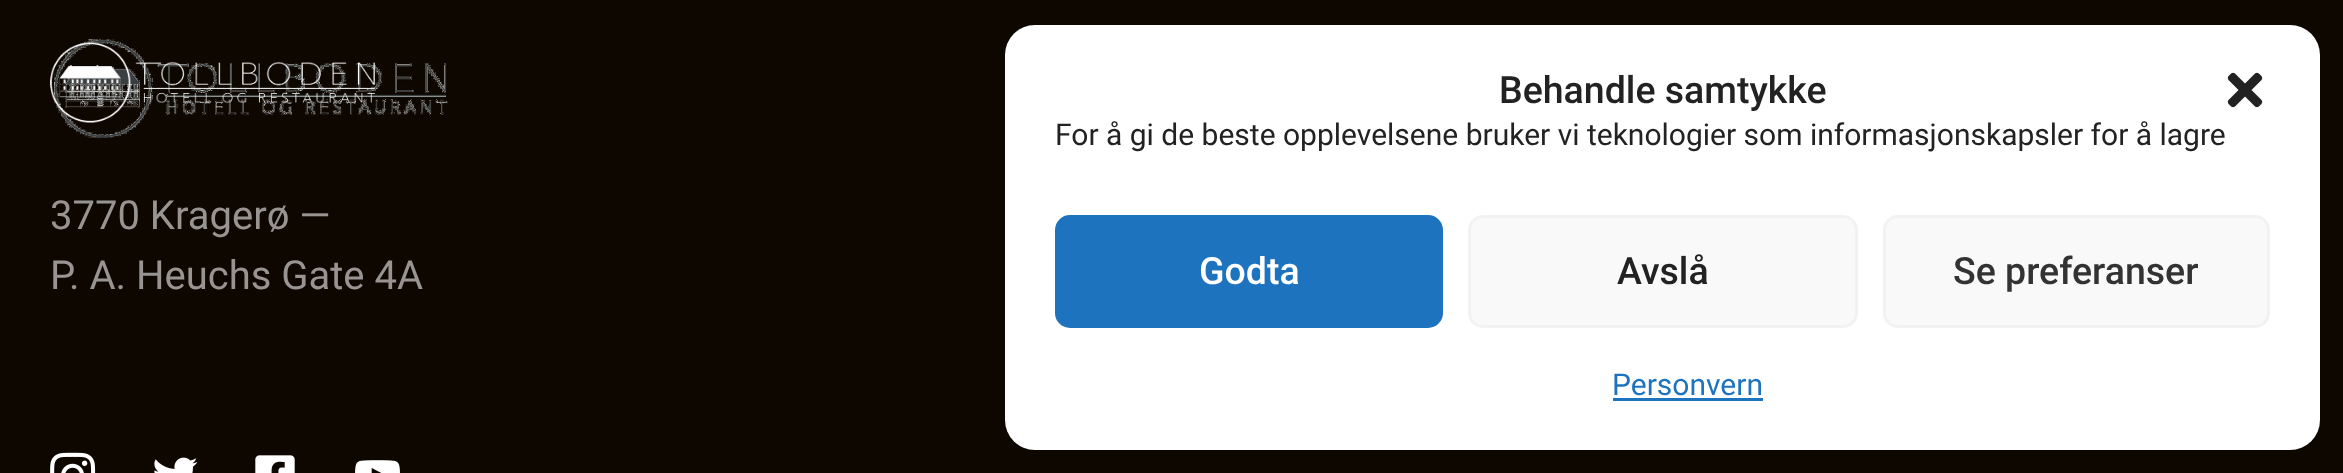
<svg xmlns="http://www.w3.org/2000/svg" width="2343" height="473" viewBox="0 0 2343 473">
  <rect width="100%" height="100%" fill="rgb(14,7,0)"/>
  <image x="54" y="39" width="394" height="99" href="pic2.png"/>
  <image x="50" y="42" width="325" height="81" href="pic1.png"/>
  <g font-family="Roboto" font-size="40" fill="rgb(151,148,145)">
    <text>
      <tspan x="50" y="229">3770 Kragerø —</tspan>
      <tspan x="50" y="289">P. A. Heuchs Gate 4A</tspan>
    </text>
  </g>
  <image x="50" y="452" width="46" height="21" href="pic3.png"/>
  <image x="154" y="457" width="44" height="16" href="pic4.png"/>
  <image x="255" y="455" width="40" height="18" href="pic5.png"/>
  <image x="355" y="460" width="45" height="13" href="pic6.png"/>
  <rect x="1005" y="25" width="1315" height="425" rx="30" fill="rgb(255,255,255)"/>
  <text x="1499" y="103" font-family="Roboto" font-size="37.5" font-weight="500" fill="rgb(34,34,34)">Behandle samtykke</text>
  <image x="2227" y="72" width="36" height="36" href="pic7.png"/>
  <text x="1055" y="145" font-family="Roboto" font-size="30" fill="rgb(34,34,34)">For å gi de beste opplevelsene bruker vi teknologier som informasjonskapsler for å lagre</text>
  <rect x="1056.5" y="216.5" width="385" height="110" rx="13.5" fill="rgb(30,115,190)" stroke="rgb(30,115,190)" stroke-width="3"/>
  <text x="1199" y="284" font-family="Roboto" font-size="37.5" font-weight="500" fill="rgb(255,255,255)">Godta</text>
  <rect x="1469.5" y="216.5" width="387" height="110" rx="13.5" fill="rgb(249,249,249)" stroke="rgb(242,242,242)" stroke-width="3"/>
  <text x="1617" y="284" font-family="Roboto" font-size="37.5" font-weight="500" fill="rgb(34,34,34)">Avslå</text>
  <rect x="1884.5" y="216.5" width="384" height="110" rx="13.5" fill="rgb(249,249,249)" stroke="rgb(242,242,242)" stroke-width="3"/>
  <text x="1953" y="284" font-family="Roboto" font-size="37.5" font-weight="500" fill="rgb(51,51,51)">Se preferanser</text>
  <text x="1612" y="395" font-family="Roboto" font-size="30" fill="rgb(30,115,190)">Personvern</text>
  <rect x="1613" y="398" width="150" height="3" fill="rgb(30,115,190)"/>
</svg>
